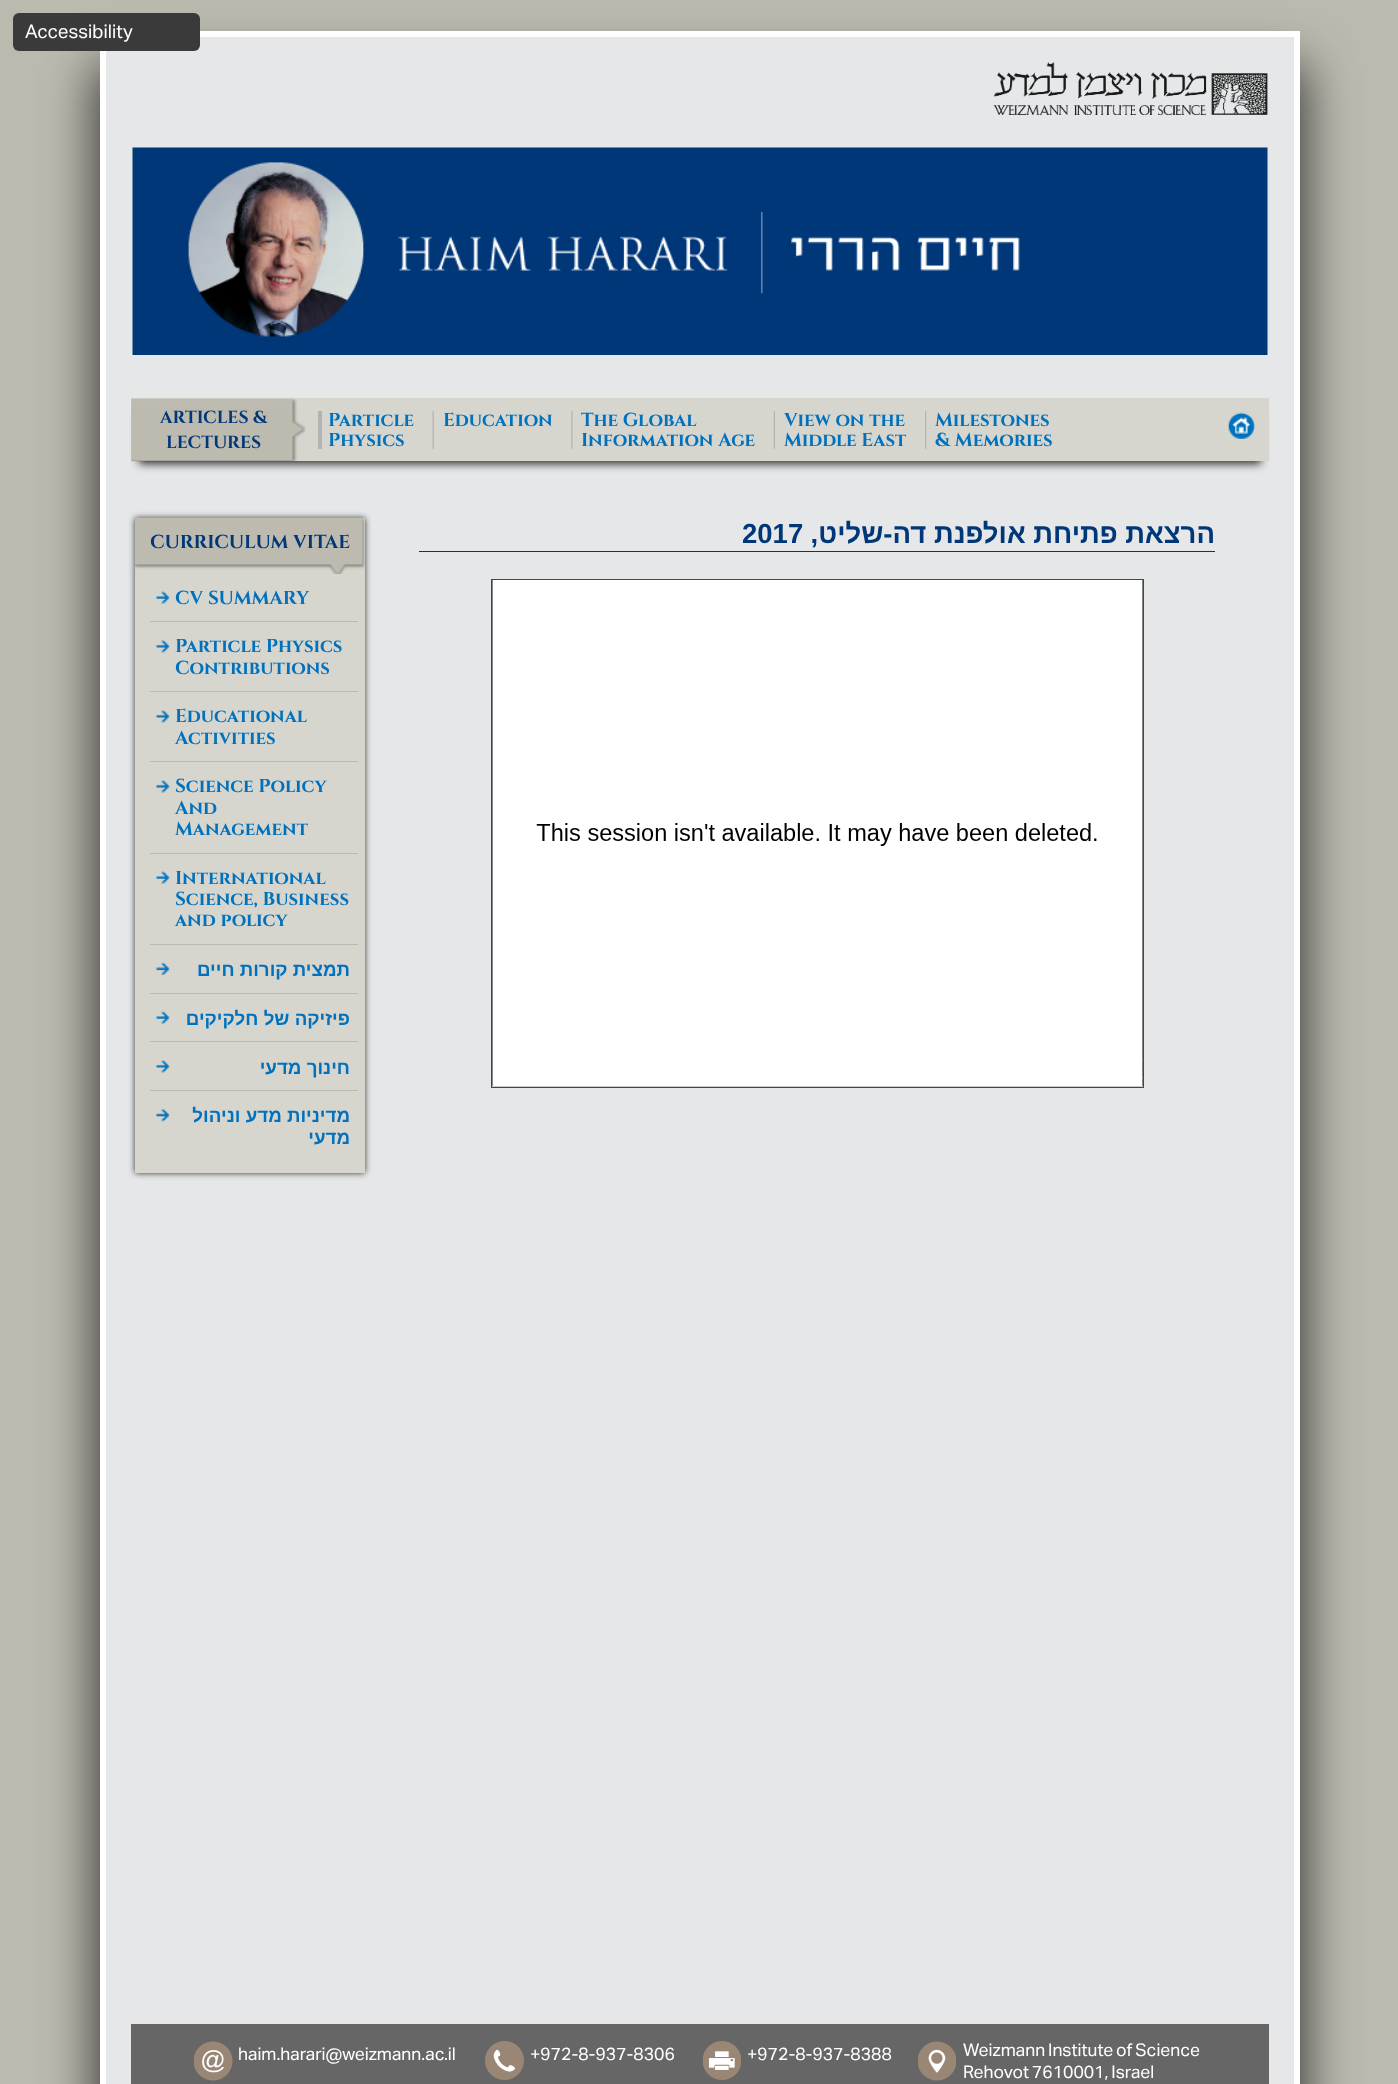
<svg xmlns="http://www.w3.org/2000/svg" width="1398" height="2084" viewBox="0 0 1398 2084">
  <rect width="100%" height="100%" fill="rgb(187,186,174)"/>
  <rect x="96" y="65" width="1208" height="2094" fill="rgb(51,51,51)" filter="blur(25px)"/>
  <rect x="103" y="34" width="1194" height="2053" fill="rgb(229,231,232)" stroke="rgb(255,255,255)" stroke-width="6"/>
  <rect x="13" y="13" width="187" height="38" rx="6" fill="rgb(58,58,58)"/>
  <text x="25" y="38" font-family="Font" font-size="18.75" fill="rgb(255,255,255)">Accessibility</text>
  <image x="993" y="62" width="275" height="53" href="pic1.png"/>
  <image x="132" y="147" width="1136" height="208" href="pic2.png"/>
  <rect x="139" y="415" width="1122" height="49" fill="rgb(51,51,51)" filter="blur(4px)"/>
  <rect x="131" y="398" width="1138" height="63" fill="rgb(214,213,206)"/>
  <image x="131" y="398" width="175" height="64" href="pic3.png"/>
  <g font-family="Cinzel" font-size="17.5" font-weight="bold" fill="rgb(0,55,121)">
    <text x="160" y="423">ARTICLES &amp;</text>
    <text x="166" y="448">LECTURES</text>
  </g>
  <rect x="318" y="411" width="4" height="38" fill="rgb(179,179,179)"/>
  <g font-family="Cinzel" font-size="18.75" font-weight="bold" fill="rgb(0,113,188)">
    <text>
      <tspan x="328" y="426">Particle</tspan>
      <tspan x="328" y="446">Physics</tspan>
    </text>
  </g>
  <image x="432" y="411" width="2" height="38" href="pic4.png"/>
  <text x="443" y="426" font-family="Cinzel" font-size="18.75" font-weight="bold" fill="rgb(0,113,188)">Education</text>
  <image x="571" y="411" width="2" height="38" href="pic5.png"/>
  <g font-family="Cinzel" font-size="18.75" font-weight="bold" fill="rgb(0,113,188)">
    <text>
      <tspan x="581" y="426">The Global</tspan>
      <tspan x="581" y="446">Information Age</tspan>
    </text>
  </g>
  <image x="773" y="411" width="2" height="38" href="pic6.png"/>
  <g font-family="Cinzel" font-size="18.75" font-weight="bold" fill="rgb(0,113,188)">
    <text>
      <tspan x="784" y="426">View on the</tspan>
      <tspan x="784" y="446">Middle East</tspan>
    </text>
  </g>
  <image x="925" y="411" width="2" height="38" href="pic7.png"/>
  <g font-family="Cinzel" font-size="18.75" font-weight="bold" fill="rgb(0,113,188)">
    <text>
      <tspan x="935" y="426">Milestones</tspan>
      <tspan x="935" y="446">&amp; Memories</tspan>
    </text>
  </g>
  <image x="1228" y="412" width="27" height="27" href="pic8.png"/>
  <rect x="135" y="518" width="230" height="655" fill="rgb(51,51,51)" filter="blur(3px)"/>
  <rect x="135" y="518" width="230" height="655" fill="rgb(214,213,206)"/>
  <image x="135" y="517" width="230" height="57" href="pic9.png"/>
  <text x="150" y="548" font-family="Cinzel" font-size="18.75" font-weight="bold" fill="rgb(0,55,121)">CURRICULUM VITAE</text>
  <image x="156" y="591" width="14" height="13" href="pic10.png"/>
  <rect x="150" y="621" width="208" height="1" fill="rgb(187,186,174)"/>
  <text x="175" y="604" font-family="Cinzel" font-size="18.75" font-weight="bold" fill="rgb(0,113,188)">CV SUMMARY</text>
  <image x="156" y="640" width="14" height="13" href="pic11.png"/>
  <rect x="150" y="691" width="208" height="1" fill="rgb(187,186,174)"/>
  <g font-family="Cinzel" font-size="18.75" font-weight="bold" fill="rgb(0,113,188)">
    <text>
      <tspan x="175" y="652">Particle Physics</tspan>
      <tspan x="175" y="674">Contributions</tspan>
    </text>
  </g>
  <image x="156" y="710" width="14" height="13" href="pic11.png"/>
  <rect x="150" y="761" width="208" height="1" fill="rgb(187,186,174)"/>
  <g font-family="Cinzel" font-size="18.75" font-weight="bold" fill="rgb(0,113,188)">
    <text>
      <tspan x="175" y="722">Educational</tspan>
      <tspan x="175" y="744">Activities</tspan>
    </text>
  </g>
  <image x="156" y="780" width="14" height="13" href="pic12.png"/>
  <rect x="150" y="853" width="208" height="1" fill="rgb(187,186,174)"/>
  <g font-family="Cinzel" font-size="18.75" font-weight="bold" fill="rgb(0,113,188)">
    <text>
      <tspan x="175" y="792">Science Policy</tspan>
      <tspan x="175" y="814">And</tspan>
      <tspan x="175" y="835">Management</tspan>
    </text>
  </g>
  <image x="156" y="871" width="14" height="13" href="pic10.png"/>
  <rect x="150" y="944" width="208" height="1" fill="rgb(187,186,174)"/>
  <g font-family="Cinzel" font-size="18.75" font-weight="bold" fill="rgb(0,113,188)">
    <text>
      <tspan x="175" y="884">International</tspan>
      <tspan x="175" y="905">Science, Business</tspan>
      <tspan x="175" y="926">and policy</tspan>
    </text>
  </g>
  <image x="156" y="962" width="14" height="14" href="pic13.png"/>
  <rect x="150" y="993" width="208" height="1" fill="rgb(187,186,174)"/>
  <text x="350" y="976" font-family="Liberation Sans" font-size="18.75" font-weight="bold" direction="rtl" fill="rgb(0,113,188)">תמצית קורות חיים</text>
  <image x="156" y="1011" width="14" height="13" href="pic10.png"/>
  <rect x="150" y="1041" width="208" height="1" fill="rgb(187,186,174)"/>
  <text x="350" y="1025" font-family="Liberation Sans" font-size="18.75" font-weight="bold" direction="rtl" fill="rgb(0,113,188)">פיזיקה של חלקיקים</text>
  <image x="156" y="1060" width="14" height="13" href="pic11.png"/>
  <rect x="150" y="1090" width="208" height="1" fill="rgb(187,186,174)"/>
  <text x="350" y="1074" font-family="Liberation Sans" font-size="18.75" font-weight="bold" direction="rtl" fill="rgb(0,113,188)">חינוך מדעי</text>
  <image x="156" y="1108" width="14" height="14" href="pic14.png"/>
  <g font-family="Liberation Sans" font-size="18.75" font-weight="bold" direction="rtl" fill="rgb(0,113,188)">
    <text>
      <tspan x="350" y="1122">מדיניות מדע וניהול</tspan>
      <tspan x="350" y="1144">מדעי</tspan>
    </text>
  </g>
  <rect x="419" y="551" width="796" height="1" fill="rgb(0,55,121)"/>
  <text x="742" y="543" font-family="Liberation Sans" font-size="27.5" font-weight="bold" fill="rgb(0,55,121)">2017</text>
  <text x="1215" y="543" font-family="Liberation Sans" font-size="27.5" font-weight="bold" direction="rtl" fill="rgb(0,55,121)">הרצאת פתיחת אולפנת דה-שליט,</text>
  <rect x="491.5" y="579.5" width="652" height="508" fill="none" stroke="rgb(70,70,70)"/>
  <image x="492" y="580" width="651" height="507" href="pic15.png"/>
  <rect x="131" y="2024" width="1138" height="60" fill="rgb(102,102,102)"/>
  <image x="194" y="2041" width="39" height="40" href="pic16.png"/>
  <text x="238" y="2060" font-family="Font" font-size="17.5" fill="rgb(255,255,255)">haim.harari@weizmann.ac.il</text>
  <image x="485" y="2041" width="39" height="39" href="pic17.png"/>
  <text x="530" y="2060" font-family="Font" font-size="17.5" fill="rgb(255,255,255)">+972-8-937-8306</text>
  <image x="703" y="2041" width="38" height="39" href="pic18.png"/>
  <text x="747" y="2060" font-family="Font" font-size="17.5" fill="rgb(255,255,255)">+972-8-937-8388</text>
  <image x="918" y="2041" width="38" height="40" href="pic19.png"/>
  <g font-family="Font" font-size="17.5" fill="rgb(255,255,255)">
    <text>
      <tspan x="963" y="2056" word-spacing="-1">Weizmann Institute of Science</tspan>
      <tspan x="963" y="2078" word-spacing="-1">Rehovot 7610001, Israel</tspan>
    </text>
  </g>
</svg>
